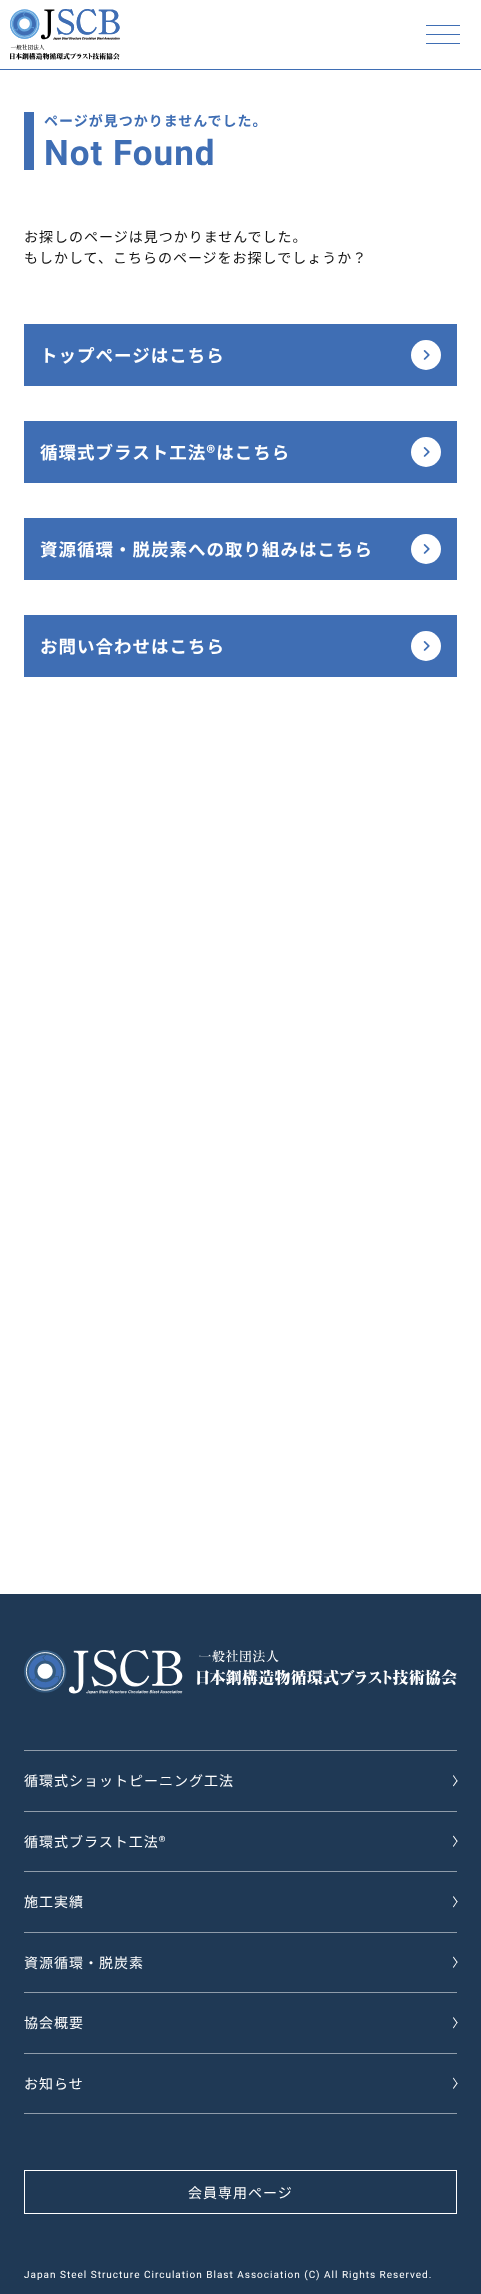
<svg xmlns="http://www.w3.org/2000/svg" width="481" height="2294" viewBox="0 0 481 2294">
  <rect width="100%" height="100%" fill="rgb(255,255,255)"/>
  <rect x="0" y="69" width="481" height="1" fill="rgb(63,110,180)"/>
  <image x="10" y="9" width="110" height="31" href="pic1.png"/>
  <image x="10" y="9" width="110" height="51" href="pic2.png"/>
  <rect x="426" y="25" width="34" height="1" fill="rgb(63,110,180)"/>
  <rect x="426" y="34" width="34" height="1" fill="rgb(63,110,180)"/>
  <rect x="426" y="43" width="34" height="1" fill="rgb(63,110,180)"/>
  <rect x="24" y="112" width="10" height="58" fill="rgb(63,110,180)"/>
  <text x="44" y="126" font-family="Noto Sans JP" font-size="14" font-weight="bold" letter-spacing="1" fill="rgb(63,110,180)">ページが見つかりませんでした。</text>
  <text x="44" y="165" font-family="Roboto" font-size="35" font-weight="bold" letter-spacing="1" fill="rgb(63,110,180)">Not Found</text>
  <g font-family="Noto Sans JP" font-size="14" letter-spacing="1" fill="rgb(17,17,17)">
    <text>
      <tspan x="24" y="242">お探しのページは見つかりませんでした。</tspan>
      <tspan x="24" y="263">もしかして、こちらのページをお探しでしょうか？</tspan>
    </text>
  </g>
  <rect x="24" y="324" width="433" height="62" fill="rgb(63,110,180)"/>
  <text x="40" y="362" font-family="Noto Sans JP" font-size="17.5" font-weight="bold" letter-spacing="1" fill="rgb(255,255,255)">トップページはこちら</text>
  <circle cx="426" cy="355" r="15" fill="rgb(255,255,255)"/>
  <image x="423" y="350" width="7" height="10" href="pic3.png"/>
  <rect x="24" y="421" width="433" height="62" fill="rgb(63,110,180)"/>
  <text x="40" y="459" font-family="Noto Sans JP" font-size="17.5" font-weight="bold" letter-spacing="1" fill="rgb(255,255,255)">循環式ブラスト工法®はこちら</text>
  <circle cx="426" cy="452" r="15" fill="rgb(255,255,255)"/>
  <image x="423" y="447" width="7" height="10" href="pic3.png"/>
  <rect x="24" y="518" width="433" height="62" fill="rgb(63,110,180)"/>
  <text x="40" y="556" font-family="Noto Sans JP" font-size="17.5" font-weight="bold" letter-spacing="1" fill="rgb(255,255,255)">資源循環・脱炭素への取り組みはこちら</text>
  <circle cx="426" cy="549" r="15" fill="rgb(255,255,255)"/>
  <image x="423" y="544" width="7" height="10" href="pic3.png"/>
  <rect x="24" y="615" width="433" height="62" fill="rgb(63,110,180)"/>
  <text x="40" y="653" font-family="Noto Sans JP" font-size="17.5" font-weight="bold" letter-spacing="1" fill="rgb(255,255,255)">お問い合わせはこちら</text>
  <circle cx="426" cy="646" r="15" fill="rgb(255,255,255)"/>
  <image x="423" y="641" width="7" height="10" href="pic3.png"/>
  <rect x="0" y="1594" width="481" height="700" fill="rgb(31,57,85)"/>
  <rect x="24" y="1750" width="433" height="1" fill="rgb(143,156,170)"/>
  <rect x="24" y="1811" width="433" height="1" fill="rgb(143,156,170)"/>
  <text x="24" y="1786" font-family="Noto Sans JP" font-size="14" letter-spacing="1" fill="rgb(255,255,255)">循環式ショットピーニング工法</text>
  <path d="M453.5 1775L457.5 1781L457 1781.5L453 1776Z" fill="rgb(255,255,255)"/>
  <path d="M457 1780L457.5 1781L453.5 1786.5L453 1785.5ZM453.5 1835.5L457.5 1841L457 1842L453 1836.5Z" fill="rgb(255,255,255)"/>
  <rect x="24" y="1871" width="433" height="1" fill="rgb(143,156,170)"/>
  <text x="24" y="1847" font-family="Noto Sans JP" font-size="14" letter-spacing="1" fill="rgb(255,255,255)">循環式ブラスト工法®</text>
  <path d="M457 1840.5L457.5 1841L453.5 1847L453 1846ZM453.5 1896L457.5 1901.5L457 1902.5L453 1897Z" fill="rgb(255,255,255)"/>
  <rect x="24" y="1932" width="433" height="1" fill="rgb(143,156,170)"/>
  <text x="24" y="1907" font-family="Noto Sans JP" font-size="14" letter-spacing="1" fill="rgb(255,255,255)">施工実績</text>
  <path d="M457 1901L457.5 1901.5L453.5 1907.5L453 1906.5ZM453.5 1956.5L457.5 1962L457 1963L453 1957.5Z" fill="rgb(255,255,255)"/>
  <rect x="24" y="1992" width="433" height="1" fill="rgb(143,156,170)"/>
  <text x="24" y="1968" font-family="Noto Sans JP" font-size="14" letter-spacing="1" fill="rgb(255,255,255)">資源循環・脱炭素</text>
  <path d="M457 1961.5L457.5 1962L453.5 1968L453 1967ZM453.5 2017L457.5 2022.5L457 2023.5L453 2018Z" fill="rgb(255,255,255)"/>
  <rect x="24" y="2053" width="433" height="1" fill="rgb(143,156,170)"/>
  <text x="24" y="2028" font-family="Noto Sans JP" font-size="14" letter-spacing="1" fill="rgb(255,255,255)">協会概要</text>
  <path d="M457 2022L457.5 2022.5L453.5 2028.5L453 2027.5ZM453.5 2077.5L457.5 2083.5L457 2084L453 2078.5Z" fill="rgb(255,255,255)"/>
  <rect x="24" y="2113" width="433" height="1" fill="rgb(143,156,170)"/>
  <text x="24" y="2089" font-family="Noto Sans JP" font-size="14" letter-spacing="1" fill="rgb(255,255,255)">お知らせ</text>
  <path d="M457 2082.5L457.5 2083.5L453.5 2089L453 2088Z" fill="rgb(255,255,255)"/>
  <image x="24" y="1650" width="433" height="44" href="pic4.png"/>
  <rect x="24.5" y="2170.5" width="432" height="43" fill="none" stroke="rgb(255,255,255)"/>
  <text x="188" y="2198" font-family="Noto Sans JP" font-size="14" letter-spacing="1" fill="rgb(255,255,255)">会員専用ページ</text>
  <text x="24" y="2278" font-family="Roboto" font-size="10" letter-spacing="1" fill="rgb(255,255,255)">Japan Steel Structure Circulation Blast Association (C) All Rights Reserved.</text>
</svg>
